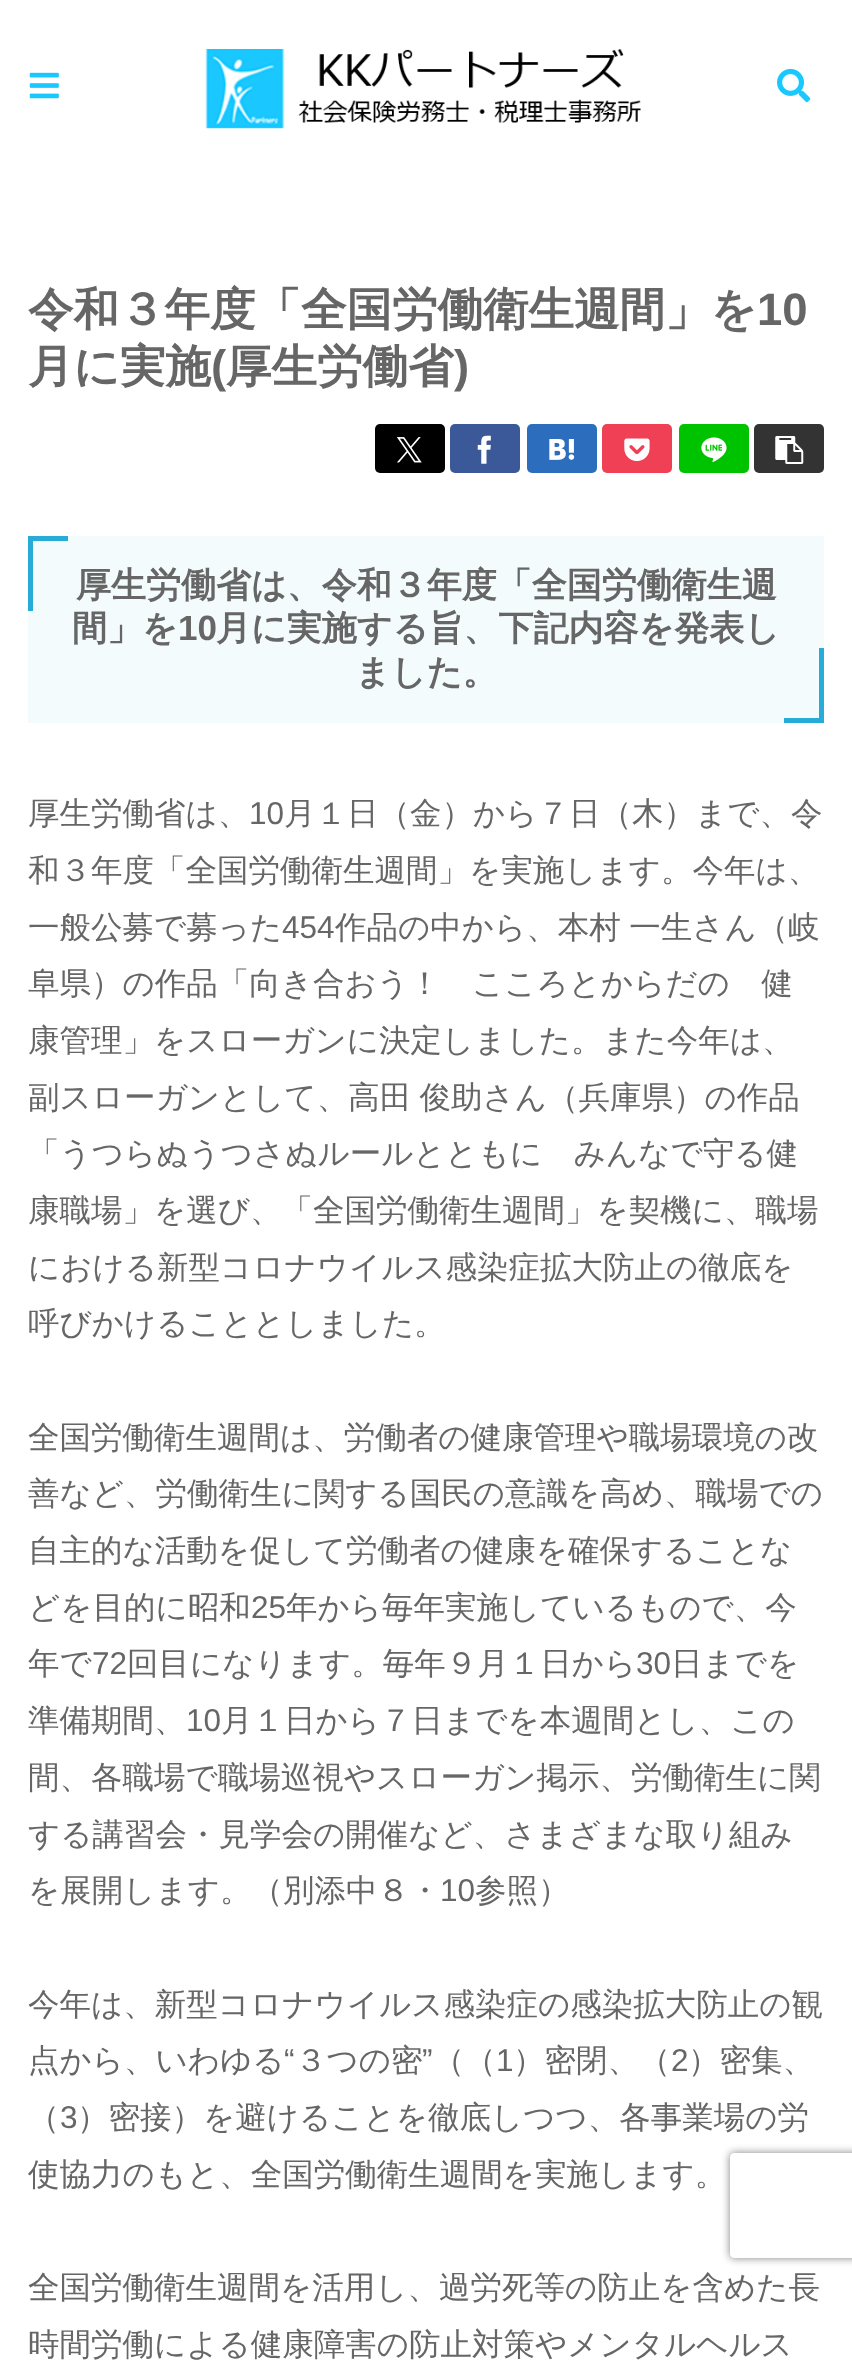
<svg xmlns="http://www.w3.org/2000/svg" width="852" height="2361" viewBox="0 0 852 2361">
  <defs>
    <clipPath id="clip1"><path d="M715 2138H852V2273H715ZM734 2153H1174C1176 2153 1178 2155 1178 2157V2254C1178 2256 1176 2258 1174 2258H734C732 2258 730 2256 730 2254V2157C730 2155 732 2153 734 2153Z" clip-rule="evenodd"/></clipPath>
  </defs>
  <rect width="100%" height="100%" fill="rgb(255,255,255)"/>
  <image x="29" y="72" width="30" height="27" href="pic1.png"/>
  <image x="205" y="49" width="436" height="80" href="pic2.png"/>
  <image x="777" y="68" width="34" height="35" href="pic3.png"/>
  <text x="28" y="325" font-family="WenQuanYi Zen Hei" font-size="45.5" font-weight="bold" fill="rgb(102,102,102)">令和３年度「全国労働衛生週間」を</text>
  <text x="757" y="325" font-family="Liberation Sans" font-size="45.5" font-weight="bold" fill="rgb(102,102,102)">10</text>
  <text x="28" y="382" font-family="WenQuanYi Zen Hei" font-size="45.5" font-weight="bold" fill="rgb(102,102,102)">月に実施</text>
  <text x="211" y="382" font-family="Liberation Sans" font-size="45.5" font-weight="bold" fill="rgb(102,102,102)">(</text>
  <text x="226" y="382" font-family="WenQuanYi Zen Hei" font-size="45.5" font-weight="bold" fill="rgb(102,102,102)">厚生労働省</text>
  <text x="454" y="382" font-family="Liberation Sans" font-size="45.5" font-weight="bold" fill="rgb(102,102,102)">)</text>
  <rect x="375" y="424" width="70" height="49" rx="5" fill="rgb(0,0,0)"/>
  <image x="396" y="437" width="26" height="26" href="pic4.png"/>
  <rect x="450" y="424" width="70" height="49" rx="5" fill="rgb(59,89,152)"/>
  <image x="477" y="435" width="14" height="29" href="pic5.png"/>
  <rect x="527" y="424" width="70" height="49" rx="5" fill="rgb(44,110,189)"/>
  <image x="549" y="439" width="26" height="21" href="pic6.png"/>
  <rect x="602" y="424" width="70" height="49" rx="5" fill="rgb(239,64,86)"/>
  <image x="624" y="438" width="26" height="23" href="pic7.png"/>
  <rect x="679" y="424" width="70" height="49" rx="5" fill="rgb(0,195,0)"/>
  <image x="701" y="437" width="26" height="26" href="pic8.png"/>
  <rect x="754" y="424" width="70" height="49" rx="5" fill="rgb(51,51,51)"/>
  <image x="775" y="436" width="29" height="28" href="pic9.png"/>
  <rect x="28" y="536" width="796" height="187" fill="rgb(244,251,253)"/>
  <rect x="28" y="536" width="40" height="5" fill="rgb(39,172,217)"/>
  <rect x="28" y="536" width="5" height="75" fill="rgb(39,172,217)"/>
  <g font-family="WenQuanYi Zen Hei" font-size="35" font-weight="bold" fill="rgb(102,102,102)">
    <text x="76" y="597">厚生労働省は、令和３年度「全国労働衛生週</text>
    <text x="72" y="640">間」を</text>
  </g>
  <text x="178" y="640" font-family="Liberation Sans" font-size="35" font-weight="bold" fill="rgb(102,102,102)">10</text>
  <g font-family="WenQuanYi Zen Hei" font-size="35" font-weight="bold" fill="rgb(102,102,102)">
    <text x="216" y="640">月に実施する旨、下記内容を発表し</text>
    <text x="355" y="684">ました。</text>
  </g>
  <rect x="819" y="648" width="5" height="75" fill="rgb(39,172,217)"/>
  <rect x="784" y="718" width="40" height="5" fill="rgb(39,172,217)"/>
  <text x="28" y="824" font-family="WenQuanYi Zen Hei" font-size="31.5" font-weight="500" fill="rgb(102,102,102)">厚生労働省は、</text>
  <text x="249" y="824" font-family="Liberation Sans" font-size="31.5" fill="rgb(102,102,102)">10</text>
  <g font-family="WenQuanYi Zen Hei" font-size="31.5" font-weight="500" fill="rgb(102,102,102)">
    <text x="284" y="824">月１日（金）から７日（木）まで、令</text>
    <text>
      <tspan x="28" y="881">和３年度「全国労働衛生週間」を実施します。今年は、</tspan>
      <tspan x="28" y="938">一般公募で募った</tspan>
    </text>
  </g>
  <text x="282" y="938" font-family="Liberation Sans" font-size="31.5" fill="rgb(102,102,102)">454</text>
  <g font-family="WenQuanYi Zen Hei" font-size="31.5" font-weight="500" fill="rgb(102,102,102)">
    <text x="335" y="938" word-spacing="-1">作品の中から、本村 一生さん（岐</text>
    <text>
      <tspan x="28" y="994">阜県）の作品「向き合おう！　こころとからだの　健</tspan>
      <tspan x="28" y="1051">康管理」をスローガンに決定しました。また今年は、</tspan>
      <tspan x="28" y="1108" word-spacing="-1">副スローガンとして、高田 俊助さん（兵庫県）の作品</tspan>
      <tspan x="28" y="1164">「うつらぬうつさぬルールとともに　みんなで守る健</tspan>
      <tspan x="28" y="1221">康職場」を選び、「全国労働衛生週間」を契機に、職場</tspan>
      <tspan x="28" y="1278">における新型コロナウイルス感染症拡大防止の徹底を</tspan>
      <tspan x="28" y="1334">呼びかけることとしました。</tspan>
    </text>
    <text>
      <tspan x="28" y="1448">全国労働衛生週間は、労働者の健康管理や職場環境の改</tspan>
      <tspan x="28" y="1504">善など、労働衛生に関する国民の意識を高め、職場での</tspan>
      <tspan x="28" y="1561">自主的な活動を促して労働者の健康を確保することな</tspan>
      <tspan x="28" y="1618">どを目的に昭和</tspan>
    </text>
  </g>
  <text x="251" y="1618" font-family="Liberation Sans" font-size="31.5" fill="rgb(102,102,102)">25</text>
  <g font-family="WenQuanYi Zen Hei" font-size="31.5" font-weight="500" fill="rgb(102,102,102)">
    <text x="286" y="1618">年から毎年実施しているもので、今</text>
    <text x="28" y="1674">年で</text>
  </g>
  <text x="92" y="1674" font-family="Liberation Sans" font-size="31.5" fill="rgb(102,102,102)">72</text>
  <text x="127" y="1674" font-family="WenQuanYi Zen Hei" font-size="31.5" font-weight="500" fill="rgb(102,102,102)">回目になります。毎年９月１日から</text>
  <text x="636" y="1674" font-family="Liberation Sans" font-size="31.5" fill="rgb(102,102,102)">30</text>
  <g font-family="WenQuanYi Zen Hei" font-size="31.5" font-weight="500" fill="rgb(102,102,102)">
    <text x="671" y="1674">日までを</text>
    <text x="28" y="1731">準備期間、</text>
  </g>
  <text x="186" y="1731" font-family="Liberation Sans" font-size="31.5" fill="rgb(102,102,102)">10</text>
  <g font-family="WenQuanYi Zen Hei" font-size="31.5" font-weight="500" fill="rgb(102,102,102)">
    <text x="221" y="1731">月１日から７日までを本週間とし、この</text>
    <text>
      <tspan x="28" y="1788">間、各職場で職場巡視やスローガン掲示、労働衛生に関</tspan>
      <tspan x="28" y="1845">する講習会・見学会の開催など、さまざまな取り組み</tspan>
      <tspan x="28" y="1901">を展開します。（別添中８・</tspan>
    </text>
  </g>
  <text x="440" y="1901" font-family="Liberation Sans" font-size="31.5" fill="rgb(102,102,102)">10</text>
  <g font-family="WenQuanYi Zen Hei" font-size="31.5" font-weight="500" fill="rgb(102,102,102)">
    <text x="475" y="1901">参照）</text>
    <text>
      <tspan x="28" y="2015">今年は、新型コロナウイルス感染症の感染拡大防止の観</tspan>
      <tspan x="28" y="2071">点から、いわゆる</tspan>
    </text>
  </g>
  <text x="284" y="2071" font-family="Liberation Sans" font-size="31.5" fill="rgb(102,102,102)">“</text>
  <text x="295" y="2071" font-family="WenQuanYi Zen Hei" font-size="31.5" font-weight="500" fill="rgb(102,102,102)">３つの密</text>
  <text x="422" y="2071" font-family="Liberation Sans" font-size="31.5" fill="rgb(102,102,102)">”</text>
  <text x="433" y="2071" font-family="WenQuanYi Zen Hei" font-size="31.5" font-weight="500" fill="rgb(102,102,102)">（（</text>
  <text x="496" y="2071" font-family="Liberation Sans" font-size="31.5" fill="rgb(102,102,102)">1</text>
  <text x="513" y="2071" font-family="WenQuanYi Zen Hei" font-size="31.5" font-weight="500" fill="rgb(102,102,102)">）密閉、（</text>
  <text x="671" y="2071" font-family="Liberation Sans" font-size="31.5" fill="rgb(102,102,102)">2</text>
  <g font-family="WenQuanYi Zen Hei" font-size="31.5" font-weight="500" fill="rgb(102,102,102)">
    <text x="688" y="2071">）密集、</text>
    <text x="28" y="2128">（</text>
  </g>
  <text x="60" y="2128" font-family="Liberation Sans" font-size="31.5" fill="rgb(102,102,102)">3</text>
  <g font-family="WenQuanYi Zen Hei" font-size="31.5" font-weight="500" fill="rgb(102,102,102)">
    <text x="77" y="2128">）密接）を避けることを徹底しつつ、各事業場の労</text>
    <text x="28" y="2185">使協力のもと、全国労働衛生週間を実施します。</text>
    <text>
      <tspan x="28" y="2298">全国労働衛生週間を活用し、過労死等の防止を含めた長</tspan>
      <tspan x="28" y="2355">時間労働による健康障害の防止対策やメンタルヘルス</tspan>
    </text>
  </g>
  <g clip-path="url(#clip1)">
    <rect x="730" y="2153" width="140" height="105" rx="4" fill="rgb(128,128,128)" filter="blur(4.5px)"/>
  </g>
</svg>
